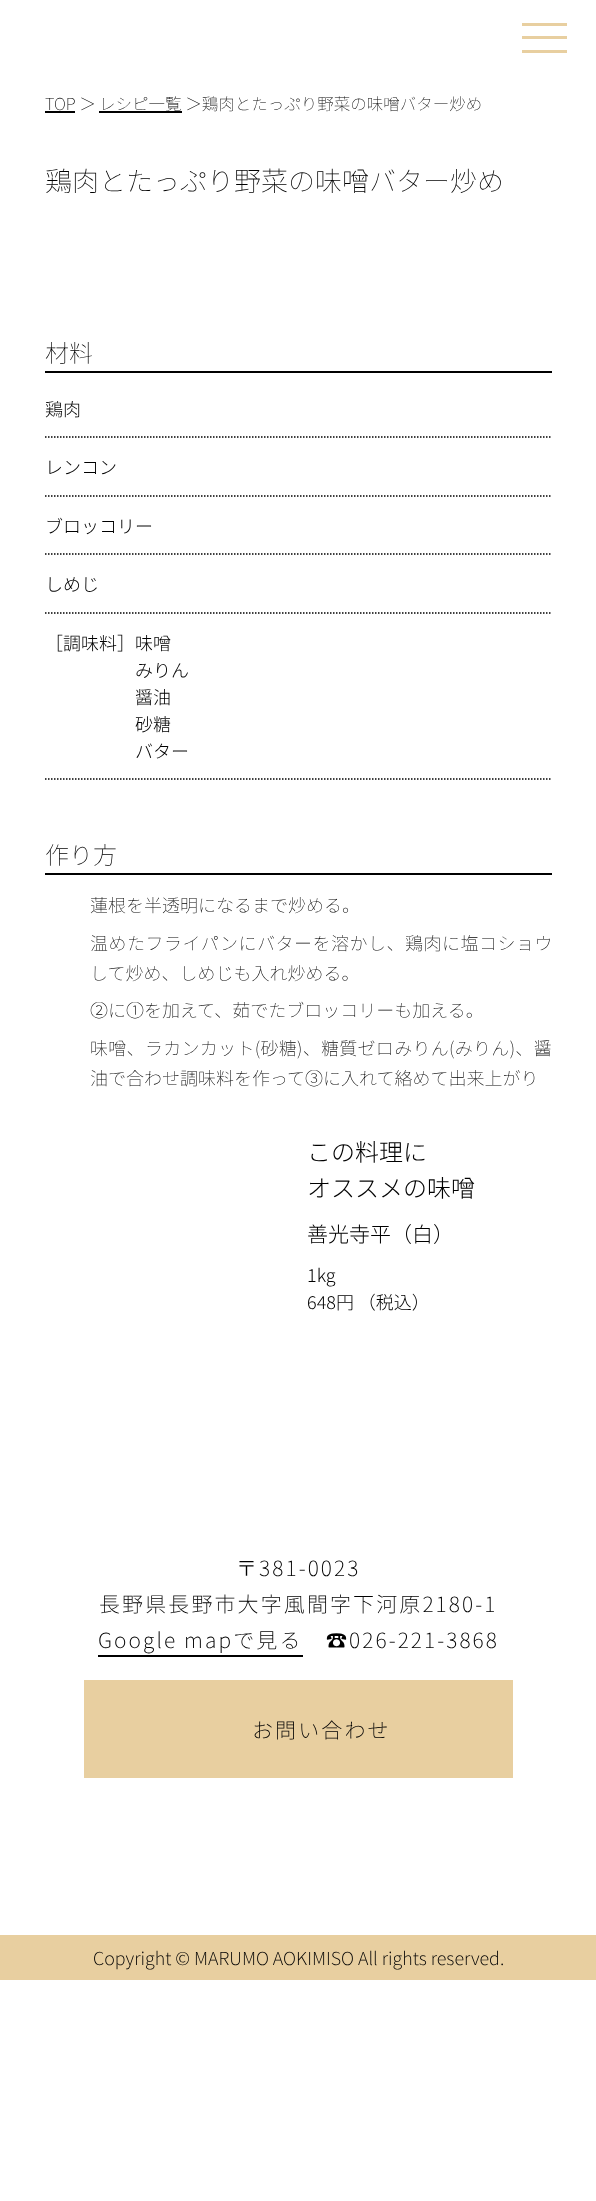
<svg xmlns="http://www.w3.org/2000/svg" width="596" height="2201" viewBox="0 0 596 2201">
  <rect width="100%" height="100%" fill="rgb(255,255,255)"/>
  <rect x="522" y="23" width="45" height="3" fill="rgb(232,207,160)"/>
  <rect x="522" y="36" width="45" height="3" fill="rgb(232,207,160)"/>
  <rect x="522" y="50" width="45" height="3" fill="rgb(232,207,160)"/>
  <text x="45" y="110" font-family="Noto Sans JP" font-size="16.5" font-weight="100" fill="rgb(0,0,0)">TOP ＞</text>
  <rect x="45" y="111" width="30" height="2" fill="rgb(0,0,0)"/>
  <rect x="99" y="111" width="83" height="2" fill="rgb(0,0,0)"/>
  <text x="99" y="110" font-family="Noto Sans JP" font-size="16.5" font-weight="100" fill="rgb(0,0,0)">レシピ一覧 ＞鶏肉とたっぷり野菜の味噌バター炒め</text>
  <text x="45" y="191" font-family="Noto Sans JP" font-size="27" font-weight="100" fill="rgb(0,0,0)">鶏肉とたっぷり野菜の味噌バター炒め</text>
  <rect x="45" y="371" width="507" height="2" fill="rgb(0,0,0)"/>
  <text x="45" y="362" font-family="Noto Sans JP" font-size="24" font-weight="100" fill="rgb(0,0,0)">材料</text>
  <path d="M45 437H552" fill="none" stroke="rgb(0,0,0)" stroke-width="1.5" stroke-dasharray="1.5 1.5"/>
  <text x="45" y="416" font-family="Noto Sans JP" font-size="18" font-weight="300" fill="rgb(0,0,0)">鶏肉</text>
  <path d="M45 496H552" fill="none" stroke="rgb(0,0,0)" stroke-width="1.5" stroke-dasharray="1.5 1.5"/>
  <text x="45" y="474" font-family="Noto Sans JP" font-size="18" font-weight="300" fill="rgb(0,0,0)">レンコン</text>
  <path d="M45 554H552" fill="none" stroke="rgb(0,0,0)" stroke-width="1.5" stroke-dasharray="1.5 1.5"/>
  <text x="45" y="533" font-family="Noto Sans JP" font-size="18" font-weight="300" fill="rgb(0,0,0)">ブロッコリー</text>
  <path d="M45 613H552" fill="none" stroke="rgb(0,0,0)" stroke-width="1.5" stroke-dasharray="1.5 1.5"/>
  <text x="45" y="591" font-family="Noto Sans JP" font-size="18" font-weight="300" fill="rgb(0,0,0)">しめじ</text>
  <path d="M45 779H552" fill="none" stroke="rgb(0,0,0)" stroke-width="1.5" stroke-dasharray="1.5 1.5"/>
  <g font-family="Noto Sans JP" font-size="18" font-weight="300" fill="rgb(0,0,0)">
    <text x="45" y="650">［調味料］味噌</text>
    <text>
      <tspan x="135" y="677">みりん</tspan>
      <tspan x="135" y="704">醤油</tspan>
      <tspan x="135" y="731">砂糖</tspan>
      <tspan x="135" y="758">バター</tspan>
    </text>
  </g>
  <rect x="45" y="873" width="507" height="2" fill="rgb(0,0,0)"/>
  <text x="45" y="864" font-family="Noto Sans JP" font-size="24" font-weight="100" fill="rgb(0,0,0)">作り方</text>
  <text x="90" y="912" font-family="Noto Sans JP" font-size="18" font-weight="100" fill="rgb(0,0,0)">蓮根を半透明になるまで炒める。</text>
  <text x="90" y="950" font-family="Noto Sans JP" font-size="18" font-weight="100" letter-spacing="0.5" fill="rgb(0,0,0)">温めたフライパンにバターを溶かし、鶏肉に塩コショウ</text>
  <g font-family="Noto Sans JP" font-size="18" font-weight="100" fill="rgb(0,0,0)">
    <text x="90" y="980">して炒め、しめじも入れ炒める。</text>
    <text x="90" y="1017">②に①を加えて、茹でたブロッコリーも加える。</text>
  </g>
  <text x="90" y="1055" font-family="Noto Sans JP" font-size="18" font-weight="100" letter-spacing="0.3" fill="rgb(0,0,0)">味噌、ラカンカット(砂糖)、糖質ゼロみりん(みりん)、醤</text>
  <text x="90" y="1085" font-family="Noto Sans JP" font-size="18" font-weight="100" fill="rgb(0,0,0)">油で合わせ調味料を作って③に入れて絡めて出来上がり</text>
  <g font-family="Noto Sans JP" font-size="24" font-weight="300" fill="rgb(0,0,0)">
    <text>
      <tspan x="307" y="1161">この料理に</tspan>
      <tspan x="307" y="1197">オススメの味噌</tspan>
    </text>
  </g>
  <text x="307" y="1242" font-family="Noto Sans JP" font-size="21" font-weight="300" fill="rgb(0,0,0)">善光寺平（白）</text>
  <g font-family="Noto Sans JP" font-size="18" font-weight="300" fill="rgb(0,0,0)">
    <text>
      <tspan x="307" y="1282">1kg</tspan>
      <tspan x="307" y="1309">648円 （税込）</tspan>
    </text>
  </g>
  <g font-family="Noto Sans JP" font-size="21" font-weight="200" letter-spacing="2.1" fill="rgb(0,0,0)">
    <text x="236" y="1576">〒381-0023</text>
    <text x="99" y="1612">長野県長野市大字風間字下河原2180-1</text>
    <text x="98" y="1648">Google mapで見る</text>
  </g>
  <rect x="98" y="1655" width="205" height="2" fill="rgb(0,0,0)"/>
  <text x="326" y="1648" font-family="Noto Sans JP" font-size="21" font-weight="200" letter-spacing="2.1" fill="rgb(0,0,0)">☎026-221-3868</text>
  <rect x="84" y="1680" width="429" height="98" fill="rgb(232,207,160)"/>
  <text x="252" y="1738" font-family="Noto Sans JP" font-size="21" font-weight="200" letter-spacing="2.1" fill="rgb(0,0,0)">お問い合わせ</text>
  <rect x="0" y="1935" width="596" height="45" fill="rgb(232,207,160)"/>
  <text x="93" y="1965" font-family="Noto Sans JP" font-size="18" font-weight="200" fill="rgb(0,0,0)">Copyright © MARUMO AOKIMISO All rights reserved.</text>
</svg>
